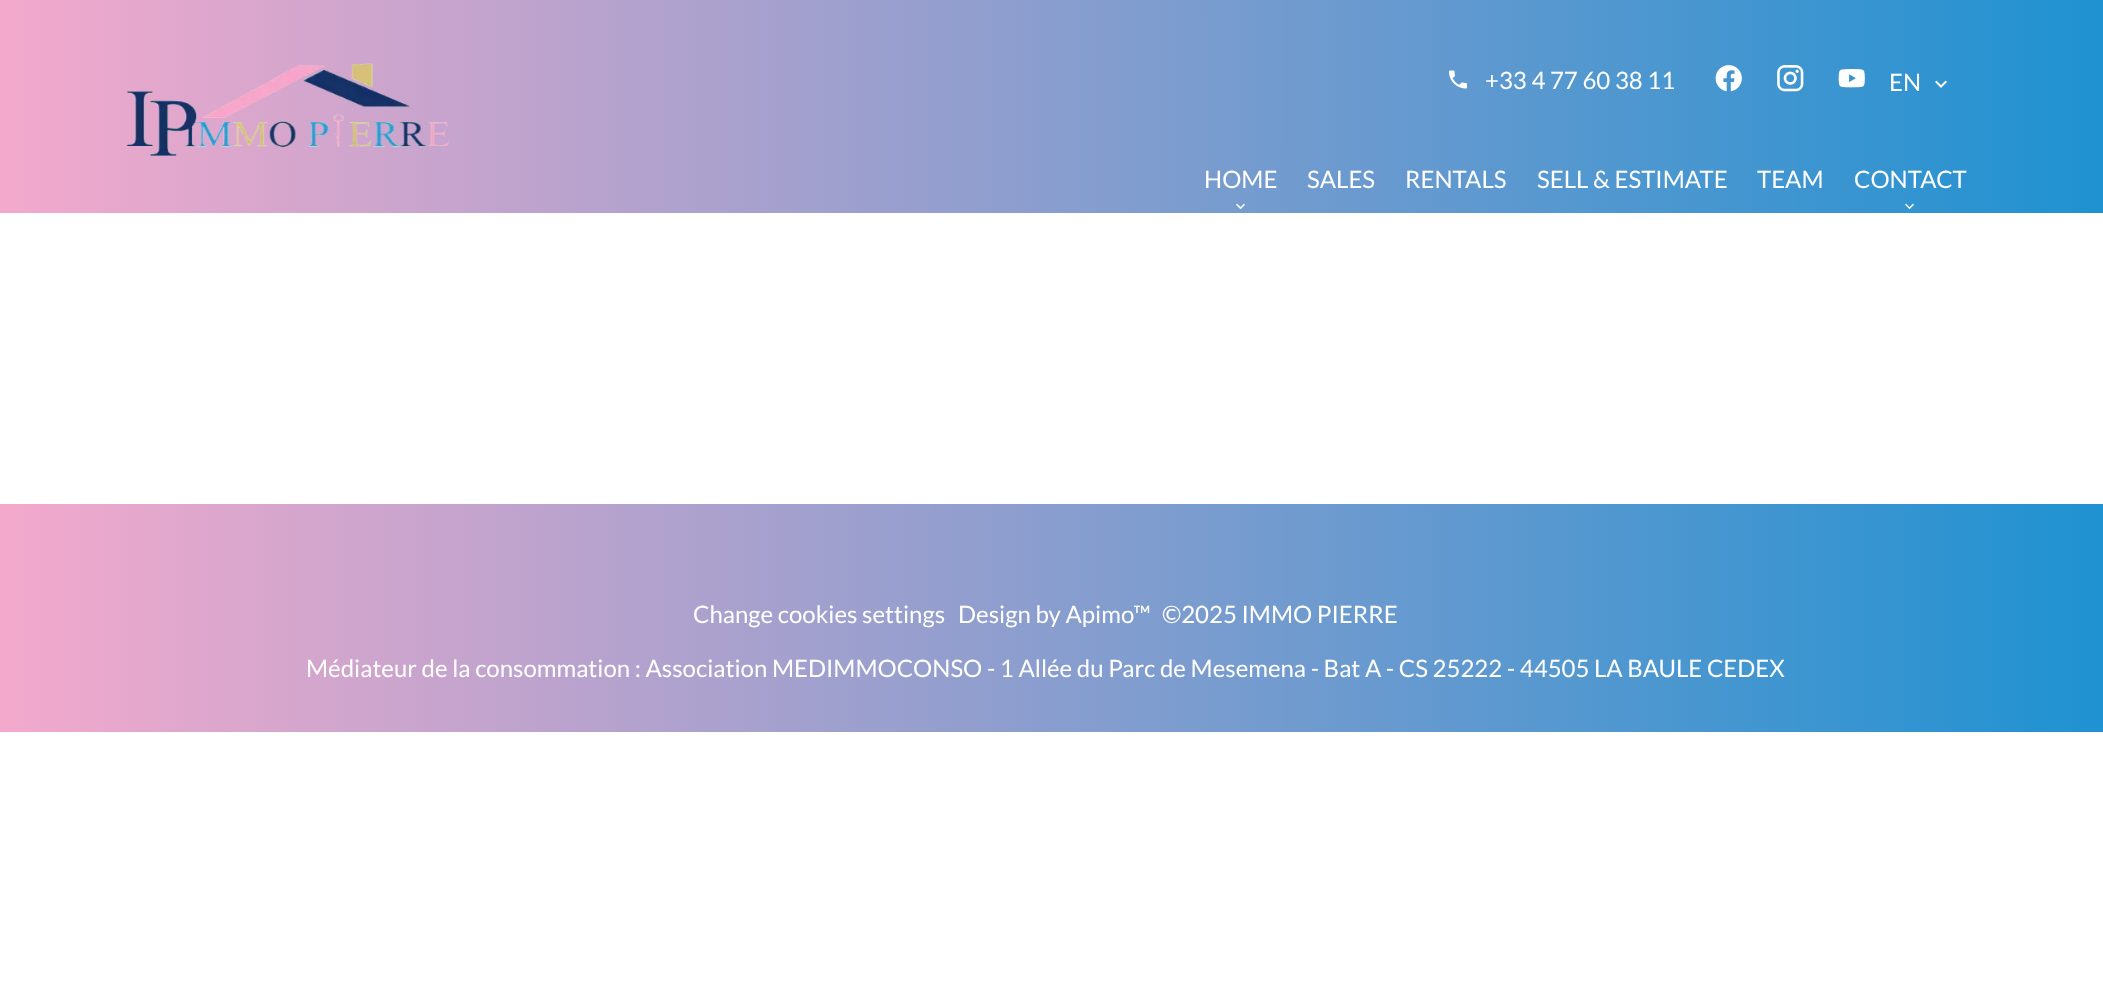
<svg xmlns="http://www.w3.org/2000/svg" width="2103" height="990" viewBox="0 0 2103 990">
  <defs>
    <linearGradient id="g1" gradientUnits="userSpaceOnUse" x1="0" y1="107" x2="2103" y2="106"><stop offset="0" stop-color="rgb(243,169,204)"/><stop offset="1" stop-color="rgb(31,146,209)"/></linearGradient>
    <linearGradient id="g2" gradientUnits="userSpaceOnUse" x1="0" y1="618" x2="2103" y2="618"><stop offset="0" stop-color="rgb(243,169,204)"/><stop offset="1" stop-color="rgb(31,146,209)"/></linearGradient>
  </defs>
  <rect width="100%" height="100%" fill="rgb(255,255,255)"/>
  <rect x="0" y="0" width="2103" height="213" fill="url(#g1)"/>
  <image x="126" y="63" width="324" height="93" href="pic1.png"/>
  <image x="1449" y="70" width="18" height="19" href="pic2.png"/>
  <text x="1485" y="89" font-family="Lato" font-size="24" fill="rgb(255,255,255)">+33 4 77 60 38 11</text>
  <image x="1715" y="65" width="27" height="27" href="pic3.png"/>
  <image x="1777" y="65" width="27" height="27" href="pic4.png"/>
  <image x="1838" y="69" width="27" height="19" href="pic5.png"/>
  <text x="1889" y="91" font-family="Lato" font-size="24" fill="rgb(255,255,255)">EN</text>
  <image x="1935" y="80" width="12" height="8" href="pic6.png"/>
  <text x="1204" y="188" font-family="Lato" font-size="24" fill="rgb(255,255,255)">HOME</text>
  <image x="1236" y="203" width="9" height="7" href="pic7.png"/>
  <g font-family="Lato" font-size="24" fill="rgb(255,255,255)">
    <text x="1307" y="188">SALES</text>
    <text x="1405" y="188">RENTALS</text>
    <text x="1537" y="188">SELL &amp; ESTIMATE</text>
    <text x="1757" y="188">TEAM</text>
    <text x="1854" y="188">CONTACT</text>
  </g>
  <image x="1905" y="203" width="9" height="7" href="pic8.png"/>
  <rect x="0" y="504" width="2103" height="228" fill="url(#g2)"/>
  <g font-family="Lato" font-size="24" fill="rgb(255,255,255)">
    <text x="693" y="623">Change cookies settings</text>
    <text x="958" y="623">Design by Apimo™</text>
    <text x="1162" y="623">©2025 IMMO PIERRE</text>
    <text x="306" y="677">Médiateur de la consommation : Association MEDIMMOCONSO - 1 Allée du Parc de Mesemena - Bat A - CS 25222 - 44505 LA BAULE CEDEX</text>
  </g>
</svg>
